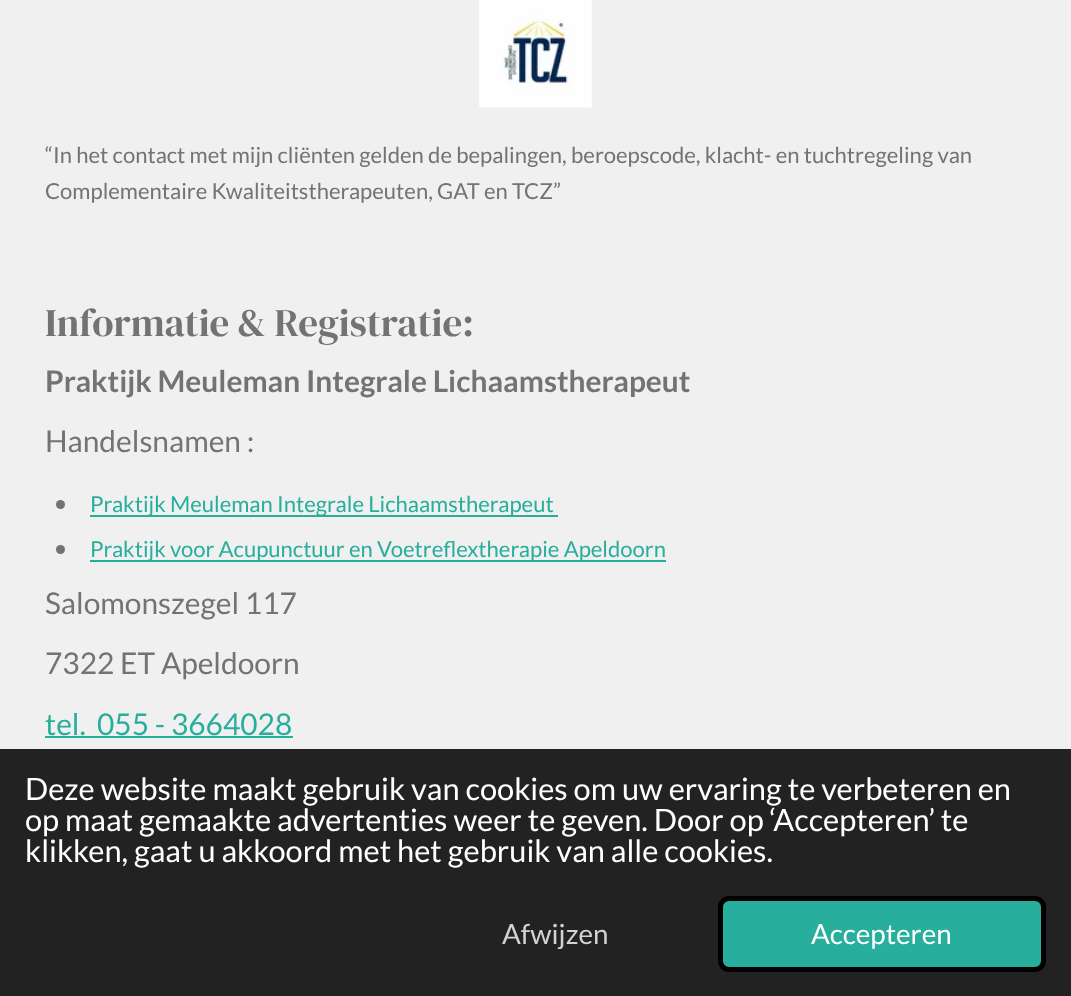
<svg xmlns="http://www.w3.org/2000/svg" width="1071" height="996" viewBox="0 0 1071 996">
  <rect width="100%" height="100%" fill="rgb(240,240,240)"/>
  <image x="479" y="0" width="113" height="108" href="pic1.png"/>
  <g font-family="Lato" font-size="22.05" fill="rgb(115,115,115)">
    <text>
      <tspan x="45" y="163">“In het contact met mijn cliënten gelden de bepalingen, beroepscode, klacht- en tuchtregeling van</tspan>
      <tspan x="45" y="199">Complementaire Kwaliteitstherapeuten, GAT en TCZ”</tspan>
    </text>
  </g>
  <text x="45" y="336" font-family="DM Serif Display" font-size="39" fill="rgb(115,115,115)">Informatie &amp; Registratie:</text>
  <text x="45" y="392" font-family="Lato" font-size="29.9" font-weight="bold" fill="rgb(115,115,115)">Praktijk Meuleman Integrale Lichaamstherapeut</text>
  <text x="45" y="452" font-family="Lato" font-size="29.9" fill="rgb(115,115,115)">Handelsnamen :</text>
  <circle cx="60.5" cy="504.5" r="4.5" fill="rgb(115,115,115)"/>
  <rect x="90" y="515" width="468" height="2" fill="rgb(39,174,157)"/>
  <text x="90" y="512" font-family="Lato" font-size="22.05" fill="rgb(39,174,157)">Praktijk Meuleman Integrale Lichaamstherapeut</text>
  <circle cx="60.5" cy="549.5" r="4.5" fill="rgb(115,115,115)"/>
  <rect x="90" y="560" width="576" height="2" fill="rgb(39,174,157)"/>
  <text x="90" y="557" font-family="Lato" font-size="22.05" fill="rgb(39,174,157)">Praktijk voor Acupunctuur en Voetreflextherapie Apeldoorn</text>
  <g font-family="Lato" font-size="29.9" fill="rgb(115,115,115)">
    <text x="45" y="614">Salomonszegel 117</text>
    <text x="45" y="674">7322 ET Apeldoorn</text>
  </g>
  <g font-family="Lato" font-size="29.9" fill="rgb(39,174,157)">
    <text x="45" y="735">tel.</text>
    <text x="97" y="735">055 - 3664028</text>
  </g>
  <rect x="45" y="736" width="248" height="2" fill="rgb(39,174,157)"/>
  <rect x="0" y="749" width="1071" height="247" fill="rgb(34,34,34)"/>
  <g font-family="Lato" font-size="30.8" fill="rgb(255,255,255)">
    <text>
      <tspan x="25" y="800">Deze website maakt gebruik van cookies om uw ervaring te verbeteren en</tspan>
      <tspan x="25" y="831">op maat gemaakte advertenties weer te geven. Door op ‘Accepteren’ te</tspan>
      <tspan x="25" y="862">klikken, gaat u akkoord met het gebruik van alle cookies.</tspan>
    </text>
  </g>
  <text x="502" y="944" font-family="Lato" font-size="27.75" fill="rgb(211,211,211)">Afwijzen</text>
  <rect x="720.5" y="898.5" width="323" height="71" rx="8.5" fill="rgb(39,174,157)" stroke="rgb(0,0,0)" stroke-width="5"/>
  <text x="811" y="944" font-family="Lato" font-size="27.75" fill="rgb(255,255,255)">Accepteren</text>
</svg>
